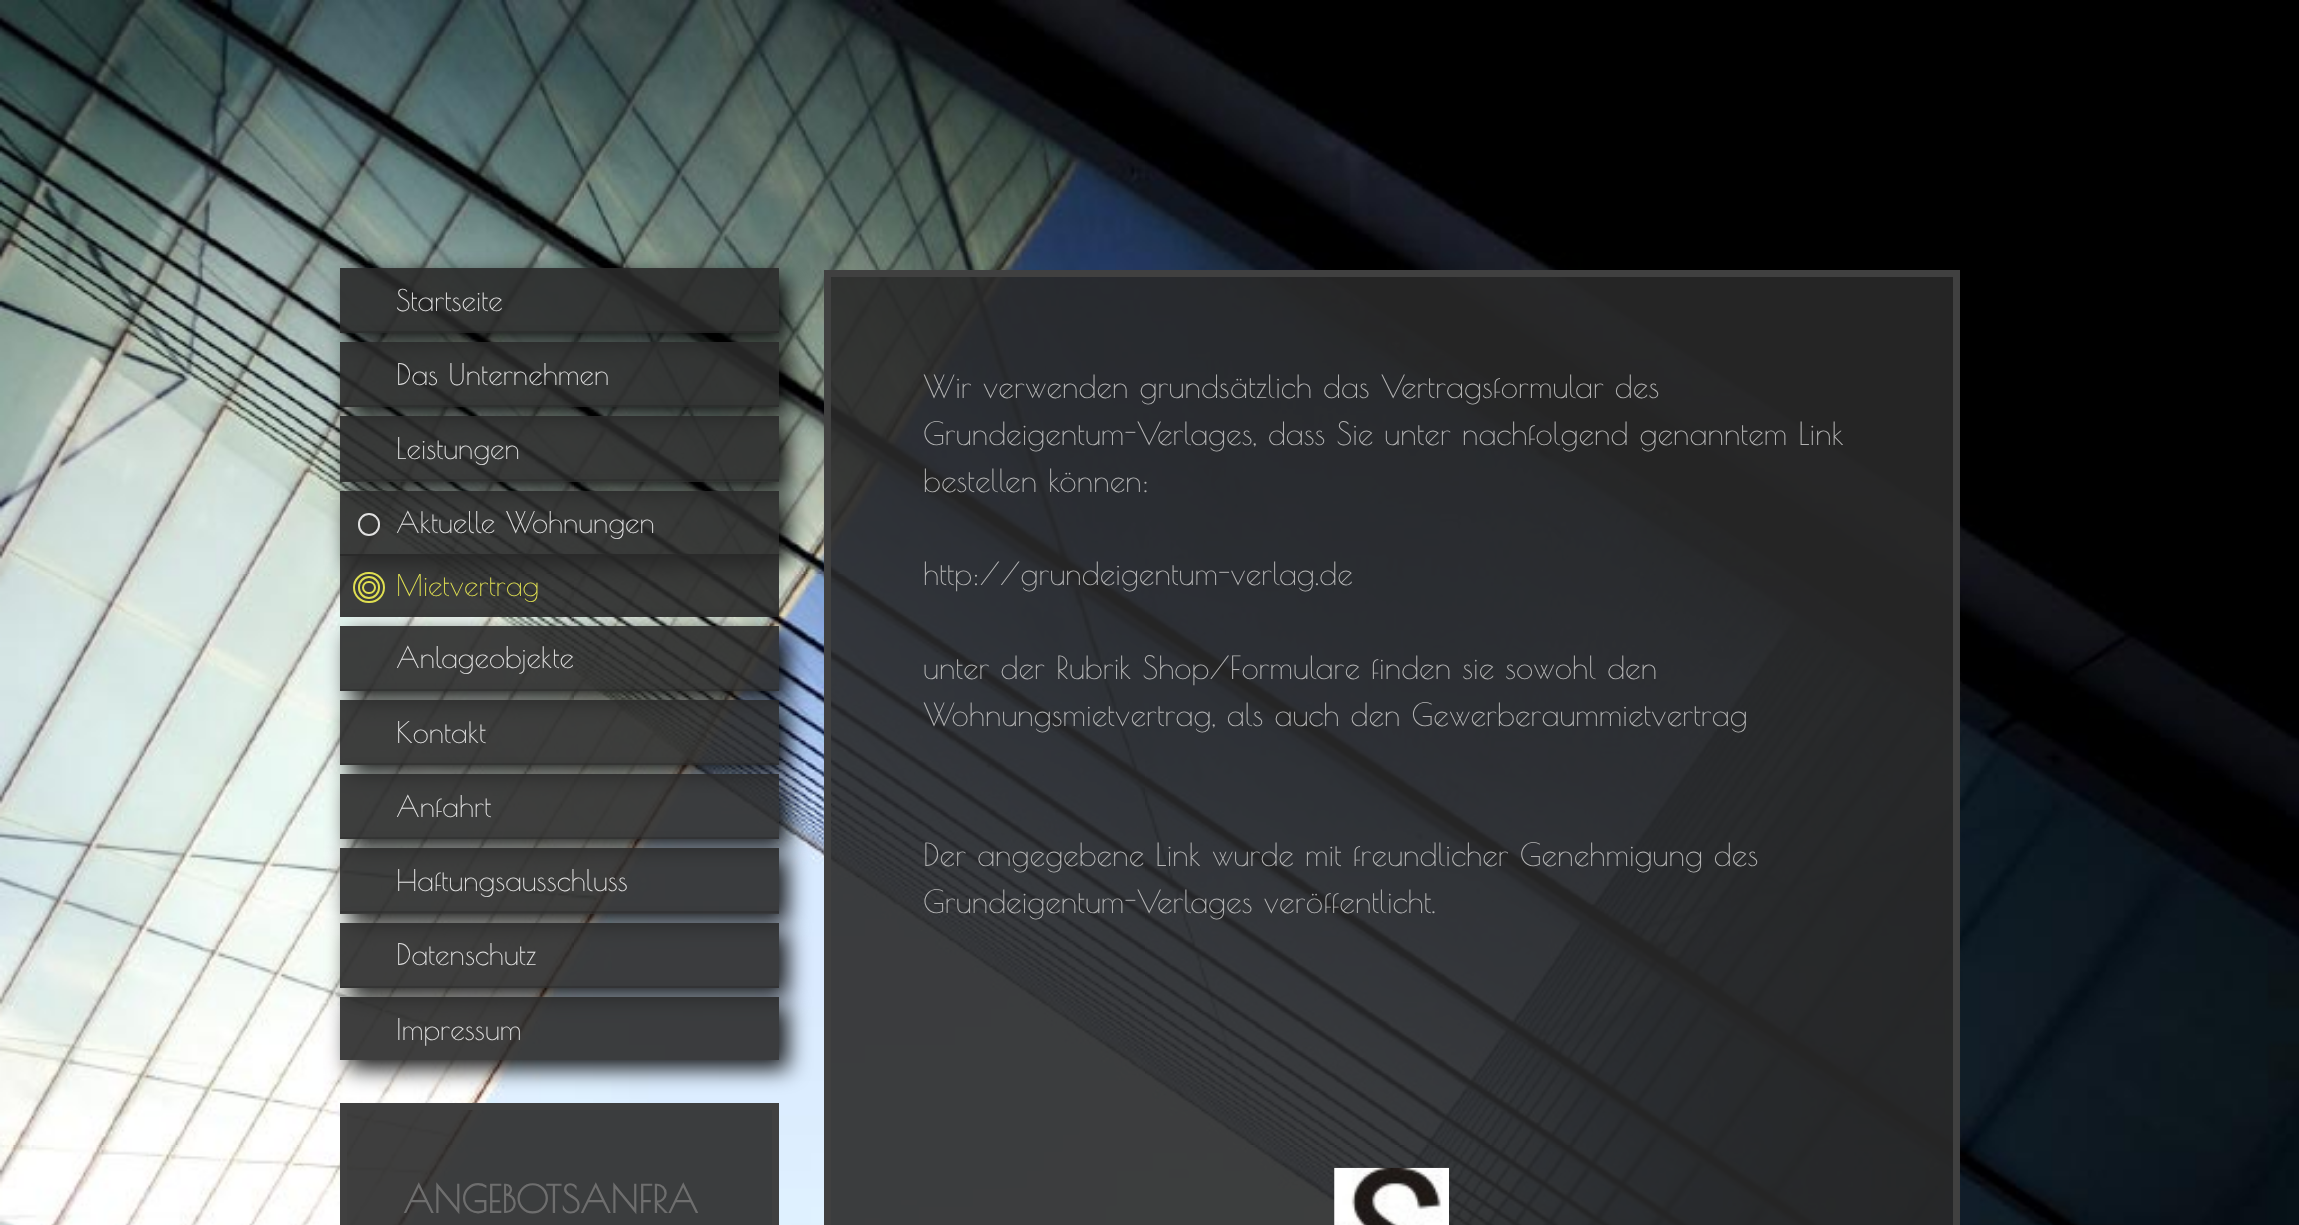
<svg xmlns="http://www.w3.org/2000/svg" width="2299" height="1225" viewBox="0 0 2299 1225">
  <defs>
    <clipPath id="clip1"><path d="M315 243H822V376H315ZM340 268H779V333H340Z" clip-rule="evenodd"/></clipPath>
    <clipPath id="clip2"><path d="M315 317H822V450H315ZM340 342H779V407H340Z" clip-rule="evenodd"/></clipPath>
    <clipPath id="clip3"><path d="M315 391H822V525H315ZM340 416H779V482H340Z" clip-rule="evenodd"/></clipPath>
    <clipPath id="clip4"><path d="M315 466H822V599H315ZM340 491H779V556H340Z" clip-rule="evenodd"/></clipPath>
    <clipPath id="clip5"><path d="M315 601H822V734H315ZM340 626H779V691H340Z" clip-rule="evenodd"/></clipPath>
    <clipPath id="clip6"><path d="M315 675H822V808H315ZM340 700H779V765H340Z" clip-rule="evenodd"/></clipPath>
    <clipPath id="clip7"><path d="M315 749H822V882H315ZM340 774H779V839H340Z" clip-rule="evenodd"/></clipPath>
    <clipPath id="clip8"><path d="M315 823H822V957H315ZM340 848H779V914H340Z" clip-rule="evenodd"/></clipPath>
    <clipPath id="clip9"><path d="M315 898H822V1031H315ZM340 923H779V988H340Z" clip-rule="evenodd"/></clipPath>
    <clipPath id="clip10"><path d="M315 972H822V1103H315ZM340 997H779V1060H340Z" clip-rule="evenodd"/></clipPath>
  </defs>
  <rect width="100%" height="100%" fill="rgb(255,255,255)"/>
  <image x="0" y="0" width="2299" height="1225" href="pic1.png"/>
  <g clip-path="url(#clip1)">
    <rect x="349" y="277" width="439" height="65" fill="rgba(0,0,0,0.9)" filter="blur(11px)"/>
  </g>
  <rect x="340" y="268" width="439" height="65" fill="rgba(41,41,41,0.9)"/>
  <rect x="340" y="331" width="439" height="2" fill="rgba(0,0,0,0.1)"/>
  <text x="396" y="311" font-family="Poiret One" font-size="29.25" fill="rgb(225,225,225)">Startseite</text>
  <g clip-path="url(#clip2)">
    <rect x="349" y="351" width="439" height="65" fill="rgba(0,0,0,0.9)" filter="blur(11px)"/>
  </g>
  <rect x="340" y="342" width="439" height="65" fill="rgba(41,41,41,0.9)"/>
  <rect x="340" y="405" width="439" height="2" fill="rgba(0,0,0,0.1)"/>
  <text x="396" y="385" font-family="Poiret One" font-size="29.25" fill="rgb(225,225,225)">Das Unternehmen</text>
  <g clip-path="url(#clip3)">
    <rect x="349" y="425" width="439" height="66" fill="rgba(0,0,0,0.9)" filter="blur(11px)"/>
  </g>
  <rect x="340" y="416" width="439" height="66" fill="rgba(41,41,41,0.9)"/>
  <rect x="340" y="479" width="439" height="2" fill="rgba(0,0,0,0.1)"/>
  <text x="396" y="459" font-family="Poiret One" font-size="29.25" fill="rgb(225,225,225)">Leistungen</text>
  <g clip-path="url(#clip4)">
    <rect x="349" y="500" width="439" height="65" fill="rgba(0,0,0,0.9)" filter="blur(11px)"/>
  </g>
  <rect x="340" y="491" width="439" height="65" fill="rgba(41,41,41,0.9)"/>
  <rect x="340" y="554" width="439" height="2" fill="rgba(0,0,0,0.1)"/>
  <rect x="359" y="514" width="20" height="21" rx="10" fill="none" stroke="rgb(225,225,225)" stroke-width="2"/>
  <text x="396" y="533" font-family="Poiret One" font-size="29.25" fill="rgb(225,225,225)">Aktuelle Wohnungen</text>
  <rect x="340" y="554" width="439" height="63" fill="rgba(41,41,41,0.9)"/>
  <rect x="354" y="573" width="30" height="29" rx="14.5" fill="none" stroke="rgb(223,223,81)" stroke-width="2"/>
  <rect x="359" y="577" width="20" height="21" rx="10" fill="none" stroke="rgb(223,223,81)" stroke-width="2"/>
  <text x="396" y="596" font-family="Poiret One" font-size="29.25" fill="rgb(223,223,81)">Mietvertrag</text>
  <rect x="363" y="582" width="12" height="11" rx="5.5" fill="none" stroke="rgb(223,223,81)" stroke-width="2"/>
  <g clip-path="url(#clip5)">
    <rect x="349" y="635" width="439" height="65" fill="rgba(0,0,0,0.9)" filter="blur(11px)"/>
  </g>
  <rect x="340" y="626" width="439" height="65" fill="rgba(41,41,41,0.9)"/>
  <rect x="340" y="689" width="439" height="2" fill="rgba(0,0,0,0.1)"/>
  <text x="396" y="668" font-family="Poiret One" font-size="29.25" fill="rgb(225,225,225)">Anlageobjekte</text>
  <g clip-path="url(#clip6)">
    <rect x="349" y="709" width="439" height="65" fill="rgba(0,0,0,0.9)" filter="blur(11px)"/>
  </g>
  <rect x="340" y="700" width="439" height="65" fill="rgba(41,41,41,0.9)"/>
  <rect x="340" y="763" width="439" height="2" fill="rgba(0,0,0,0.1)"/>
  <text x="396" y="743" font-family="Poiret One" font-size="29.25" fill="rgb(225,225,225)">Kontakt</text>
  <g clip-path="url(#clip7)">
    <rect x="349" y="783" width="439" height="65" fill="rgba(0,0,0,0.9)" filter="blur(11px)"/>
  </g>
  <rect x="340" y="774" width="439" height="65" fill="rgba(41,41,41,0.9)"/>
  <rect x="340" y="837" width="439" height="2" fill="rgba(0,0,0,0.1)"/>
  <text x="396" y="817" font-family="Poiret One" font-size="29.25" fill="rgb(225,225,225)">Anfahrt</text>
  <g clip-path="url(#clip8)">
    <rect x="349" y="857" width="439" height="66" fill="rgba(0,0,0,0.9)" filter="blur(11px)"/>
  </g>
  <rect x="340" y="848" width="439" height="66" fill="rgba(41,41,41,0.9)"/>
  <rect x="340" y="911" width="439" height="2" fill="rgba(0,0,0,0.1)"/>
  <text x="396" y="891" font-family="Poiret One" font-size="29.25" fill="rgb(225,225,225)">Haftungsausschluss</text>
  <g clip-path="url(#clip9)">
    <rect x="349" y="932" width="439" height="65" fill="rgba(0,0,0,0.9)" filter="blur(11px)"/>
  </g>
  <rect x="340" y="923" width="439" height="65" fill="rgba(41,41,41,0.9)"/>
  <rect x="340" y="986" width="439" height="2" fill="rgba(0,0,0,0.1)"/>
  <text x="396" y="965" font-family="Poiret One" font-size="29.25" fill="rgb(225,225,225)">Datenschutz</text>
  <g clip-path="url(#clip10)">
    <rect x="349" y="1006" width="439" height="63" fill="rgba(0,0,0,0.9)" filter="blur(11px)"/>
  </g>
  <rect x="340" y="997" width="439" height="63" fill="rgba(41,41,41,0.9)"/>
  <text x="396" y="1040" font-family="Poiret One" font-size="29.25" fill="rgb(225,225,225)">Impressum</text>
  <rect x="343.5" y="1106.5" width="432" height="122" fill="rgba(41,41,41,0.9)" stroke="rgb(64,64,64)" stroke-width="7"/>
  <text x="403" y="1213" font-family="Poiret One" font-size="37.75" font-weight="bold" fill="rgb(110,110,110)">ANGEBOTSANFRA</text>
  <rect x="827.5" y="273.5" width="1129" height="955" fill="rgba(41,41,41,0.9)" stroke="rgb(64,64,64)" stroke-width="7"/>
  <g font-family="Poiret One" font-size="31.5" fill="rgb(179,179,179)">
    <text>
      <tspan x="923" y="398">Wir verwenden grundsätzlich das Vertragsformular des</tspan>
      <tspan x="923" y="445">Grundeigentum-Verlages, dass Sie unter nachfolgend genanntem Link</tspan>
      <tspan x="923" y="492">bestellen können:</tspan>
    </text>
    <text x="923" y="585">http://grundeigentum-verlag.de</text>
    <text>
      <tspan x="923" y="679">unter der Rubrik Shop/Formulare finden sie sowohl den</tspan>
      <tspan x="923" y="726">Wohnungsmietvertrag, als auch den Gewerberaummietvertrag</tspan>
    </text>
    <text>
      <tspan x="923" y="866">Der angegebene Link wurde mit freundlicher Genehmigung des</tspan>
      <tspan x="923" y="913">Grundeigentum-Verlages veröffentlicht.</tspan>
    </text>
  </g>
  <image x="1334" y="1167" width="115" height="58" href="pic2.png"/>
</svg>
